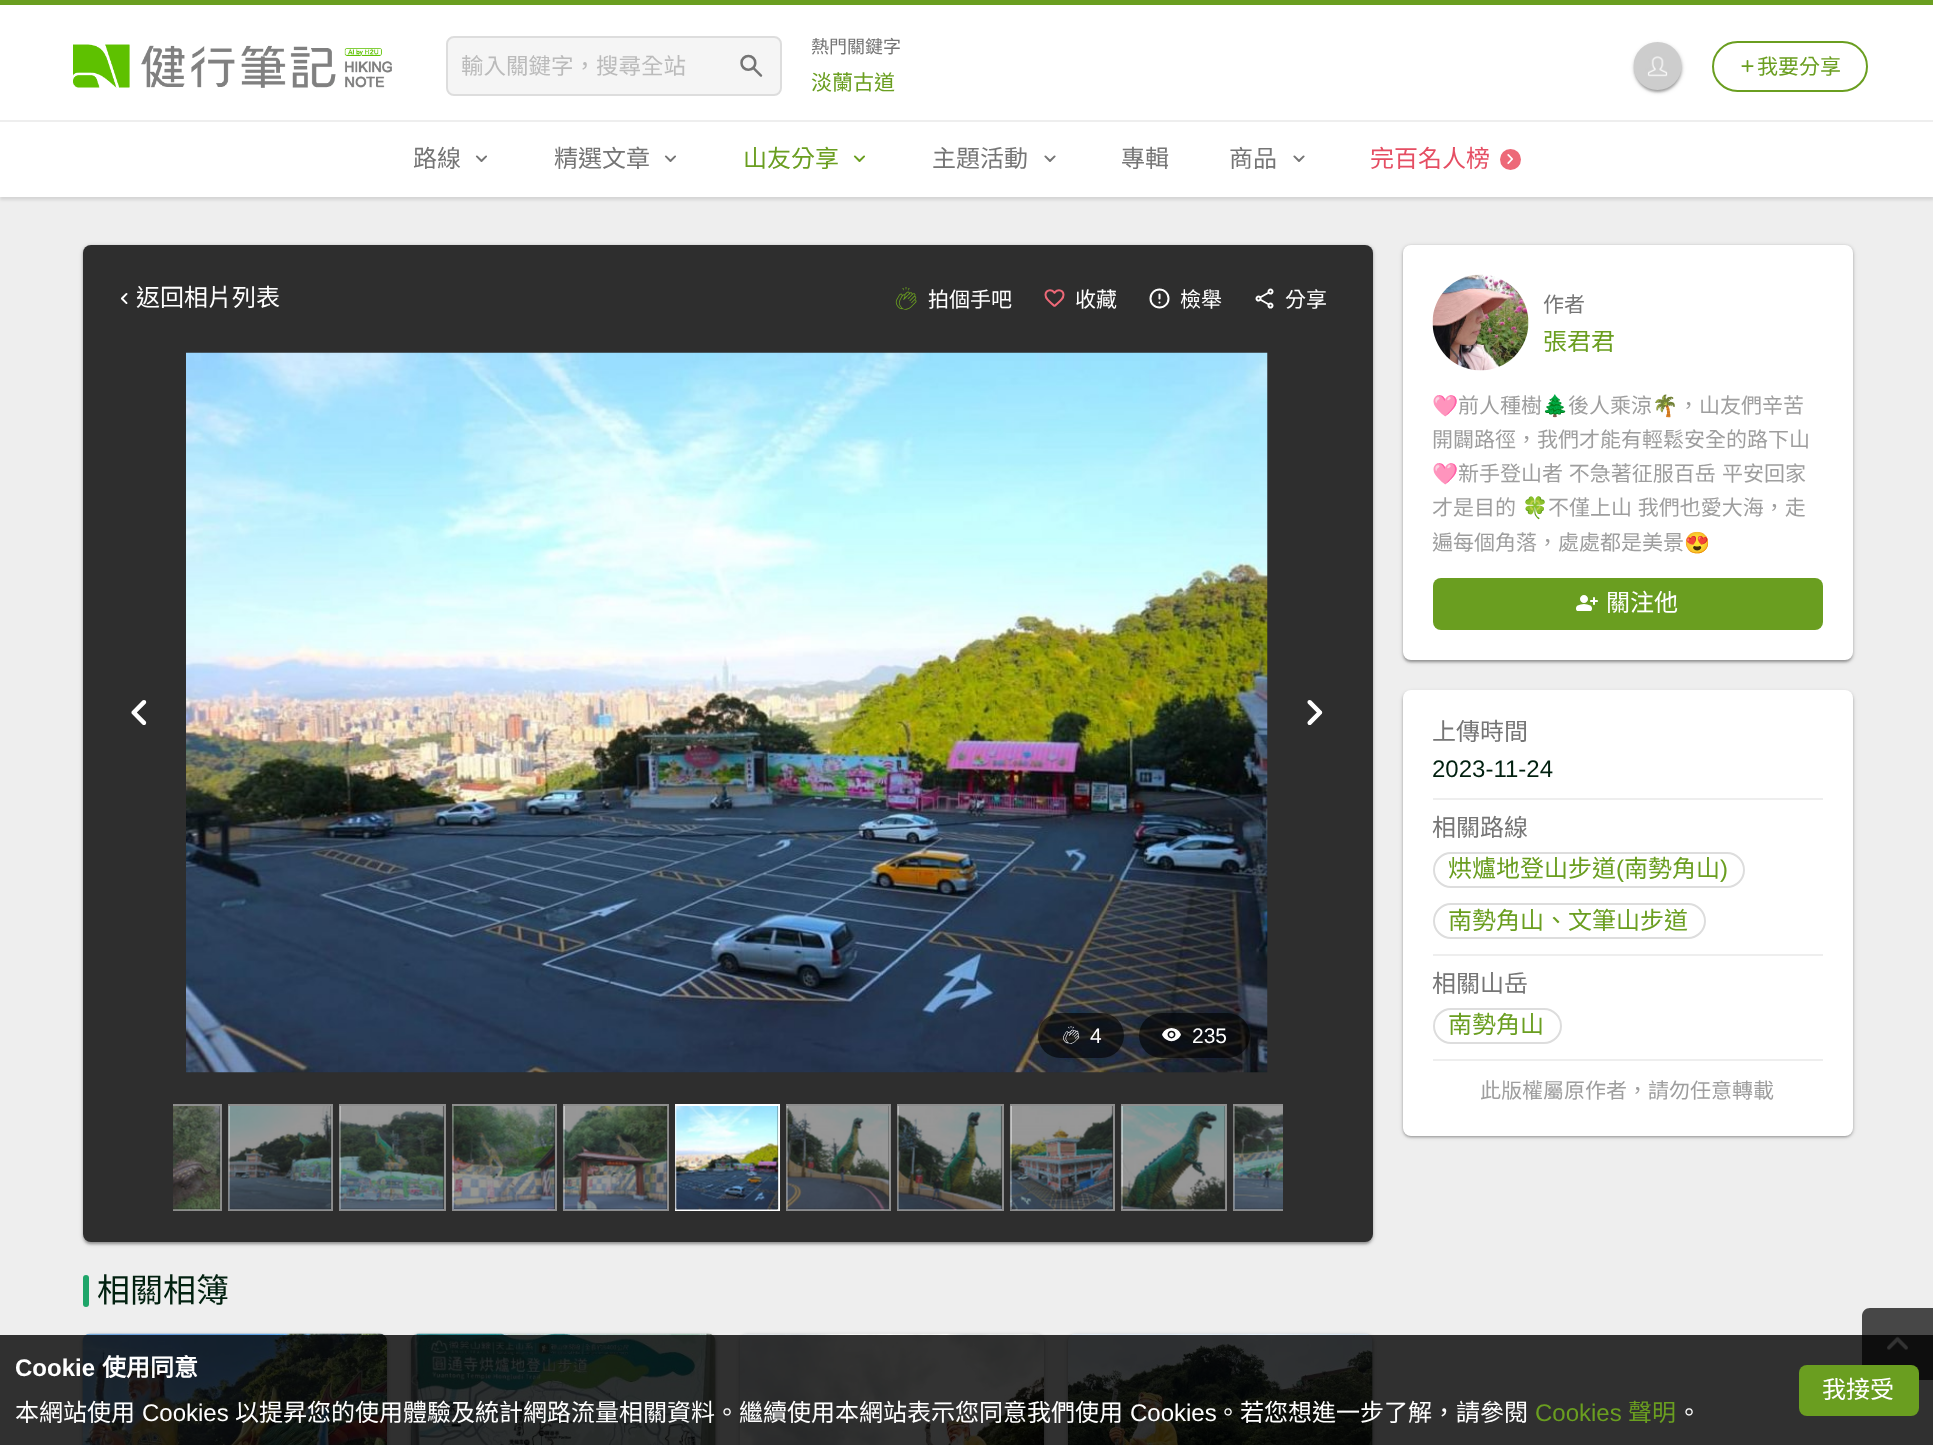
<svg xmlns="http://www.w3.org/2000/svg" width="1933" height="1445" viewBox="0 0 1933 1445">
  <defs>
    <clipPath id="clip1"><rect x="173" y="1103" width="1110" height="109"/></clipPath>
  </defs>
  <rect width="100%" height="100%" fill="rgb(238,238,238)"/>
  <rect x="0" y="3" width="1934" height="197" fill="rgba(0,0,0,0.1)" filter="blur(1.5px)"/>
  <rect x="0" y="5" width="1933" height="192" fill="rgb(255,255,255)"/>
  <rect x="0" y="0" width="1933" height="5" fill="rgb(106,158,32)"/>
  <image x="73" y="44" width="319" height="44" href="pic1.png"/>
  <rect x="447" y="37" width="334" height="58" rx="7" fill="rgb(245,245,245)" stroke="rgb(221,221,221)" stroke-width="2"/>
  <text x="461" y="74" font-family="Noto Sans CJK TC" font-size="22.5" fill="rgb(187,187,187)">輸入關鍵字，搜尋全站</text>
  <image x="740" y="54" width="23" height="23" href="pic2.png"/>
  <text x="811" y="53" font-family="Noto Sans CJK TC" font-size="18" fill="rgb(117,117,117)">熱門關鍵字</text>
  <text x="811" y="90" font-family="Noto Sans CJK TC" font-size="21" fill="rgb(106,158,32)">淡蘭古道</text>
  <rect x="1634" y="44" width="48" height="48" rx="24" fill="rgba(0,0,0,0.2)" filter="blur(2px)"/>
  <rect x="1635" y="47" width="45" height="45" rx="22.5" fill="rgba(0,0,0,0.12)" filter="blur(1px)"/>
  <rect x="1634" y="44" width="48" height="48" rx="24" fill="rgba(0,0,0,0.14)" filter="blur(1px)"/>
  <image x="1633" y="42" width="49" height="48" href="pic3.png"/>
  <rect x="1713" y="42" width="154" height="49" rx="24.5" fill="none" stroke="rgb(106,158,32)" stroke-width="2"/>
  <image x="1741" y="60" width="13" height="13" href="pic4.png"/>
  <text x="1757" y="74" font-family="Noto Sans CJK TC" font-size="21" fill="rgb(106,158,32)">我要分享</text>
  <rect x="0" y="120" width="1933" height="2" fill="rgb(238,238,238)"/>
  <text x="413" y="167" font-family="Noto Sans CJK TC" font-size="24" fill="rgb(117,117,117)">路線</text>
  <image x="475" y="155" width="12" height="7" href="pic5.png"/>
  <text x="554" y="167" font-family="Noto Sans CJK TC" font-size="24" fill="rgb(117,117,117)">精選文章</text>
  <image x="664" y="155" width="12" height="7" href="pic5.png"/>
  <text x="743" y="167" font-family="Noto Sans CJK TC" font-size="24" fill="rgb(106,158,32)">山友分享</text>
  <image x="853" y="155" width="12" height="7" href="pic6.png"/>
  <text x="932" y="167" font-family="Noto Sans CJK TC" font-size="24" fill="rgb(117,117,117)">主題活動</text>
  <image x="1044" y="155" width="12" height="7" href="pic7.png"/>
  <g font-family="Noto Sans CJK TC" font-size="24" fill="rgb(117,117,117)">
    <text x="1121" y="167">專輯</text>
    <text x="1229" y="167">商品</text>
  </g>
  <image x="1293" y="155" width="12" height="7" href="pic7.png"/>
  <text x="1370" y="167" font-family="Noto Sans CJK TC" font-size="24" fill="rgb(229,78,99)">完百名人榜</text>
  <circle cx="1510.5" cy="159.5" r="10.5" fill="rgb(237,105,120)"/>
  <image x="1507" y="154" width="6" height="10" href="pic8.png"/>
  <rect x="83" y="246" width="1290" height="998" rx="8" fill="rgba(0,0,0,0.2)" filter="blur(2px)"/>
  <rect x="84" y="249" width="1287" height="995" rx="6" fill="rgba(0,0,0,0.12)" filter="blur(1px)"/>
  <rect x="83" y="246" width="1290" height="998" rx="8" fill="rgba(0,0,0,0.14)" filter="blur(1px)"/>
  <rect x="83" y="245" width="1290" height="997" rx="8" fill="rgb(46,46,46)"/>
  <image x="120" y="293" width="8" height="11" href="pic9.png"/>
  <text x="136" y="306" font-family="Noto Sans CJK TC" font-size="24" fill="rgb(255,255,255)">返回相片列表</text>
  <image x="895" y="287" width="22" height="23" href="pic10.png"/>
  <text x="928" y="307" font-family="Noto Sans CJK TC" font-size="21" fill="rgb(255,255,255)">拍個手吧</text>
  <image x="1044" y="289" width="21" height="18" href="pic11.png"/>
  <text x="1075" y="307" font-family="Noto Sans CJK TC" font-size="21" fill="rgb(255,255,255)">收藏</text>
  <image x="1149" y="288" width="21" height="21" href="pic12.png"/>
  <text x="1180" y="307" font-family="Noto Sans CJK TC" font-size="21" fill="rgb(255,255,255)">檢舉</text>
  <image x="1255" y="288" width="19" height="21" href="pic13.png"/>
  <text x="1285" y="307" font-family="Noto Sans CJK TC" font-size="21" fill="rgb(255,255,255)">分享</text>
  <image x="131" y="700" width="16" height="25" href="pic14.png"/>
  <image x="1307" y="700" width="16" height="25" href="pic15.png"/>
  <image x="186" y="352" width="1082" height="721" href="pic16.png"/>
  <rect x="1038" y="1013" width="86" height="45" rx="22.5" fill="rgba(0,0,0,0.6)"/>
  <image x="1063" y="1026" width="17" height="18" href="pic17.png"/>
  <text x="1090" y="1043" font-family="Liberation Sans" font-size="21" fill="rgb(255,255,255)">4</text>
  <rect x="1139" y="1013" width="111" height="45" rx="22.5" fill="rgba(0,0,0,0.6)"/>
  <image x="1162" y="1028" width="19" height="14" href="pic18.png"/>
  <text x="1192" y="1043" font-family="Liberation Sans" font-size="21" fill="rgb(255,255,255)">235</text>
  <g clip-path="url(#clip1)">
    <rect x="118" y="1105" width="103" height="105" fill="none" stroke="rgb(142,142,142)" stroke-width="2"/>
  </g>
  <image x="173" y="1106" width="48" height="104" href="pic19.png"/>
  <rect x="229" y="1105" width="103" height="105" fill="none" stroke="rgb(142,142,142)" stroke-width="2"/>
  <image x="228" y="1106" width="104" height="104" href="pic20.png"/>
  <rect x="340" y="1105" width="105" height="105" fill="none" stroke="rgb(142,142,142)" stroke-width="2"/>
  <image x="339" y="1106" width="105" height="104" href="pic21.png"/>
  <rect x="453" y="1105" width="103" height="105" fill="none" stroke="rgb(142,142,142)" stroke-width="2"/>
  <image x="451" y="1106" width="104" height="104" href="pic22.png"/>
  <rect x="564" y="1105" width="104" height="105" fill="none" stroke="rgb(142,142,142)" stroke-width="2"/>
  <image x="562" y="1106" width="106" height="104" href="pic23.png"/>
  <rect x="676" y="1105" width="103" height="105" fill="none" stroke="rgb(255,255,255)" stroke-width="2"/>
  <image x="675" y="1106" width="104" height="104" href="pic24.png"/>
  <rect x="787" y="1105" width="103" height="105" fill="none" stroke="rgb(142,142,142)" stroke-width="2"/>
  <image x="786" y="1106" width="104" height="104" href="pic25.png"/>
  <rect x="898" y="1105" width="105" height="105" fill="none" stroke="rgb(142,142,142)" stroke-width="2"/>
  <image x="897" y="1106" width="105" height="104" href="pic26.png"/>
  <rect x="1011" y="1105" width="103" height="105" fill="none" stroke="rgb(142,142,142)" stroke-width="2"/>
  <image x="1009" y="1106" width="104" height="104" href="pic27.png"/>
  <rect x="1122" y="1105" width="104" height="105" fill="none" stroke="rgb(142,142,142)" stroke-width="2"/>
  <image x="1120" y="1106" width="106" height="104" href="pic28.png"/>
  <g clip-path="url(#clip1)">
    <rect x="1234" y="1105" width="103" height="105" fill="none" stroke="rgb(142,142,142)" stroke-width="2"/>
  </g>
  <image x="1233" y="1106" width="50" height="104" href="pic29.png"/>
  <rect x="83" y="1275" width="6" height="32" rx="3" fill="rgb(30,165,105)"/>
  <text x="97" y="1302" font-family="Noto Sans CJK TC" font-size="33" fill="rgb(1,32,15)">相關相簿</text>
  <rect x="83" y="1335" width="304" height="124" rx="8" fill="rgba(0,0,0,0.2)" filter="blur(2px)"/>
  <rect x="83" y="1335" width="304" height="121" rx="8" fill="rgba(0,0,0,0.14)" filter="blur(1px)"/>
  <image x="82" y="1333" width="305" height="112" href="pic30.png"/>
  <rect x="411" y="1335" width="305" height="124" rx="8" fill="rgba(0,0,0,0.2)" filter="blur(2px)"/>
  <rect x="411" y="1335" width="305" height="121" rx="8" fill="rgba(0,0,0,0.14)" filter="blur(1px)"/>
  <image x="411" y="1333" width="305" height="112" href="pic31.png"/>
  <rect x="740" y="1335" width="304" height="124" rx="8" fill="rgba(0,0,0,0.2)" filter="blur(2px)"/>
  <rect x="740" y="1335" width="304" height="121" rx="8" fill="rgba(0,0,0,0.14)" filter="blur(1px)"/>
  <image x="739" y="1333" width="305" height="112" href="pic32.png"/>
  <rect x="1068" y="1335" width="305" height="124" rx="8" fill="rgba(0,0,0,0.2)" filter="blur(2px)"/>
  <rect x="1068" y="1335" width="305" height="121" rx="8" fill="rgba(0,0,0,0.14)" filter="blur(1px)"/>
  <image x="1068" y="1333" width="305" height="112" href="pic33.png"/>
  <rect x="1403" y="246" width="450" height="416" rx="8" fill="rgba(0,0,0,0.2)" filter="blur(2px)"/>
  <rect x="1404" y="249" width="447" height="413" rx="6" fill="rgba(0,0,0,0.12)" filter="blur(1px)"/>
  <rect x="1403" y="246" width="450" height="416" rx="8" fill="rgba(0,0,0,0.14)" filter="blur(1px)"/>
  <rect x="1403" y="245" width="450" height="415" rx="8" fill="rgb(255,255,255)"/>
  <image x="1432" y="274" width="97" height="97" href="pic34.png"/>
  <text x="1543" y="312" font-family="Noto Sans CJK TC" font-size="21" fill="rgb(117,117,117)">作者</text>
  <text x="1543" y="350" font-family="Noto Sans CJK TC" font-size="24" fill="rgb(106,158,32)">張君君</text>
  <text x="1432" y="413" font-family="Noto Color Emoji" font-size="21" fill="rgb(158,158,158)">🩷</text>
  <text x="1458" y="413" font-family="Noto Sans CJK TC" font-size="21" fill="rgb(158,158,158)">前人種樹</text>
  <text x="1542" y="413" font-family="Noto Color Emoji" font-size="21" fill="rgb(158,158,158)">🌲</text>
  <text x="1568" y="413" font-family="Noto Sans CJK TC" font-size="21" fill="rgb(158,158,158)">後人乘涼</text>
  <text x="1652" y="413" font-family="Noto Color Emoji" font-size="21" fill="rgb(158,158,158)">🌴</text>
  <g font-family="Noto Sans CJK TC" font-size="21" fill="rgb(158,158,158)">
    <text x="1678" y="413">，山友們辛苦</text>
    <text x="1432" y="447">開闢路徑，我們才能有輕鬆安全的路下山</text>
  </g>
  <text x="1432" y="481" font-family="Noto Color Emoji" font-size="21" fill="rgb(158,158,158)">🩷</text>
  <g font-family="Noto Sans CJK TC" font-size="21" fill="rgb(158,158,158)">
    <text x="1458" y="481" word-spacing="1">新手登山者 不急著征服百岳</text>
    <text x="1722" y="481">平安回家</text>
    <text x="1432" y="515">才是目的</text>
  </g>
  <text x="1522" y="515" font-family="Noto Color Emoji" font-size="21" fill="rgb(158,158,158)">🍀</text>
  <g font-family="Noto Sans CJK TC" font-size="21" fill="rgb(158,158,158)">
    <text x="1548" y="515" word-spacing="1">不僅上山 我們也愛大海，走</text>
    <text x="1432" y="550">遍每個角落，處處都是美景</text>
  </g>
  <text x="1684" y="550" font-family="Noto Color Emoji" font-size="21" fill="rgb(158,158,158)">😍</text>
  <rect x="1433" y="578" width="390" height="52" rx="8" fill="rgb(106,158,32)"/>
  <image x="1576" y="595" width="22" height="16" href="pic35.png"/>
  <text x="1606" y="611" font-family="Noto Sans CJK TC" font-size="24" fill="rgb(255,255,255)">關注他</text>
  <rect x="1403" y="692" width="450" height="445" rx="8" fill="rgba(0,0,0,0.2)" filter="blur(2px)"/>
  <rect x="1404" y="695" width="447" height="442" rx="6" fill="rgba(0,0,0,0.12)" filter="blur(1px)"/>
  <rect x="1403" y="692" width="450" height="445" rx="8" fill="rgba(0,0,0,0.14)" filter="blur(1px)"/>
  <rect x="1403" y="690" width="450" height="446" rx="8" fill="rgb(255,255,255)"/>
  <text x="1432" y="740" font-family="Noto Sans CJK TC" font-size="24" fill="rgb(117,117,117)">上傳時間</text>
  <text x="1432" y="777" font-family="Liberation Sans" font-size="24" fill="rgb(1,32,15)">2023-11-24</text>
  <rect x="1433" y="798" width="390" height="2" fill="rgb(238,238,238)"/>
  <text x="1432" y="836" font-family="Noto Sans CJK TC" font-size="24" fill="rgb(117,117,117)">相關路線</text>
  <rect x="1434" y="853" width="310" height="34" rx="17" fill="none" stroke="rgb(221,221,221)" stroke-width="2"/>
  <text x="1448" y="877" font-family="Noto Sans CJK TC" font-size="24" fill="rgb(106,158,32)">烘爐地登山步道</text>
  <text x="1616" y="877" font-family="Liberation Sans" font-size="24" fill="rgb(106,158,32)">(</text>
  <text x="1624" y="877" font-family="Noto Sans CJK TC" font-size="24" fill="rgb(106,158,32)">南勢角山</text>
  <text x="1720" y="877" font-family="Liberation Sans" font-size="24" fill="rgb(106,158,32)">)</text>
  <rect x="1434" y="904" width="271" height="34" rx="17" fill="none" stroke="rgb(221,221,221)" stroke-width="2"/>
  <text x="1448" y="929" font-family="Noto Sans CJK TC" font-size="24" fill="rgb(106,158,32)">南勢角山、文筆山步道</text>
  <rect x="1433" y="954" width="390" height="2" fill="rgb(238,238,238)"/>
  <text x="1432" y="992" font-family="Noto Sans CJK TC" font-size="24" fill="rgb(117,117,117)">相關山岳</text>
  <rect x="1434" y="1009" width="127" height="34" rx="17" fill="none" stroke="rgb(221,221,221)" stroke-width="2"/>
  <text x="1448" y="1033" font-family="Noto Sans CJK TC" font-size="24" fill="rgb(106,158,32)">南勢角山</text>
  <rect x="1433" y="1059" width="390" height="2" fill="rgb(238,238,238)"/>
  <text x="1480" y="1098" font-family="Noto Sans CJK TC" font-size="21" fill="rgb(158,158,158)">此版權屬原作者，請勿任意轉載</text>
  <path d="M1870 1308H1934V1380H1870C1865.5 1380 1862 1376.5 1862 1372V1316C1862 1311.5 1865.5 1308 1870 1308Z" fill="rgb(71,71,71)"/>
  <image x="1887" y="1336" width="21" height="14" href="pic36.png"/>
  <rect x="0" y="1335" width="1933" height="110" fill="rgba(0,0,0,0.8)"/>
  <text x="15" y="1376" font-family="Liberation Sans" font-size="24" font-weight="bold" fill="rgb(255,255,255)">Cookie</text>
  <text x="102" y="1376" font-family="Noto Sans CJK TC" font-size="24" font-weight="bold" fill="rgb(255,255,255)">使用同意</text>
  <text x="15" y="1421" font-family="Noto Sans CJK TC" font-size="24" fill="rgb(255,255,255)">本網站使用</text>
  <text x="142" y="1421" font-family="Liberation Sans" font-size="24" fill="rgb(255,255,255)">Cookies</text>
  <text x="235" y="1421" font-family="Noto Sans CJK TC" font-size="24" fill="rgb(255,255,255)">以提昇您的使用體驗及統計網路流量相關資料。繼續使用本網站表示您同意我們使用</text>
  <text x="1130" y="1421" font-family="Liberation Sans" font-size="24" fill="rgb(255,255,255)">Cookies</text>
  <text x="1216" y="1421" font-family="Noto Sans CJK TC" font-size="24" fill="rgb(255,255,255)">。若您想進一步了解，請參閱</text>
  <text x="1535" y="1421" font-family="Liberation Sans" font-size="24" fill="rgb(106,158,32)">Cookies</text>
  <text x="1628" y="1421" font-family="Noto Sans CJK TC" font-size="24" fill="rgb(106,158,32)">聲明</text>
  <text x="1677" y="1421" font-family="Noto Sans CJK TC" font-size="24" fill="rgb(255,255,255)">。</text>
  <rect x="1799" y="1365" width="120" height="51" rx="8" fill="rgb(106,158,32)"/>
  <text x="1822" y="1398" font-family="Noto Sans CJK TC" font-size="24" fill="rgb(255,255,255)">我接受</text>
</svg>
